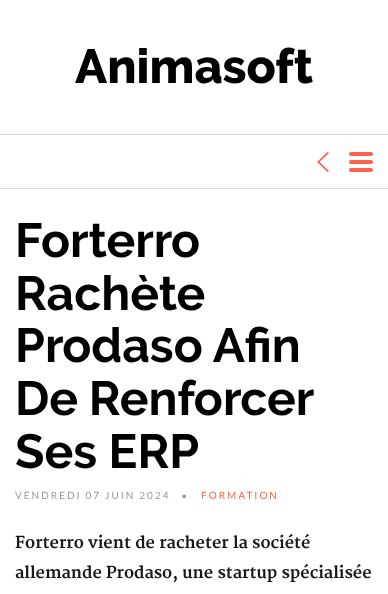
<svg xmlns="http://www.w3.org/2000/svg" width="388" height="594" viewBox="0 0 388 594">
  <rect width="100%" height="100%" fill="rgb(255,255,255)"/>
  <text x="75" y="83" font-family="Raleway" font-size="48" font-weight="800" fill="rgb(0,0,0)">Animasoft</text>
  <rect x="0" y="134" width="388" height="1" fill="rgb(221,221,221)"/>
  <rect x="0" y="188" width="388" height="1" fill="rgb(221,221,221)"/>
  <path d="M329 153L319.5 162L329 171L327.5 172L317 162L327.5 152Z" fill="rgb(252,98,77)"/>
  <image x="349" y="152" width="24" height="20" href="pic1.png"/>
  <g font-family="Raleway" font-size="48" font-weight="bold" fill="rgb(0,0,0)">
    <text>
      <tspan x="15" y="257">Forterro</tspan>
      <tspan x="15" y="310">Rachète</tspan>
      <tspan x="15" y="362">Prodaso Afin</tspan>
      <tspan x="15" y="415" word-spacing="-1">De Renforcer</tspan>
      <tspan x="15" y="468">Ses ERP</tspan>
    </text>
  </g>
  <text x="15" y="499" font-family="Lato" font-size="10" letter-spacing="2" fill="rgb(152,152,152)">VENDREDI 07 JUIN 2024</text>
  <text x="181" y="498" font-family="Lato" font-size="30" letter-spacing="2" fill="rgb(152,152,152)">.</text>
  <text x="201" y="499" font-family="Lato" font-size="10" letter-spacing="2" fill="rgb(252,98,77)">FORMATION</text>
  <g font-family="Merriweather" font-size="16" font-weight="bold" fill="rgb(24,24,24)">
    <text>
      <tspan x="15" y="548">Forterro vient de racheter la société</tspan>
      <tspan x="15" y="578">allemande Prodaso, une startup spécialisée</tspan>
    </text>
  </g>
</svg>
